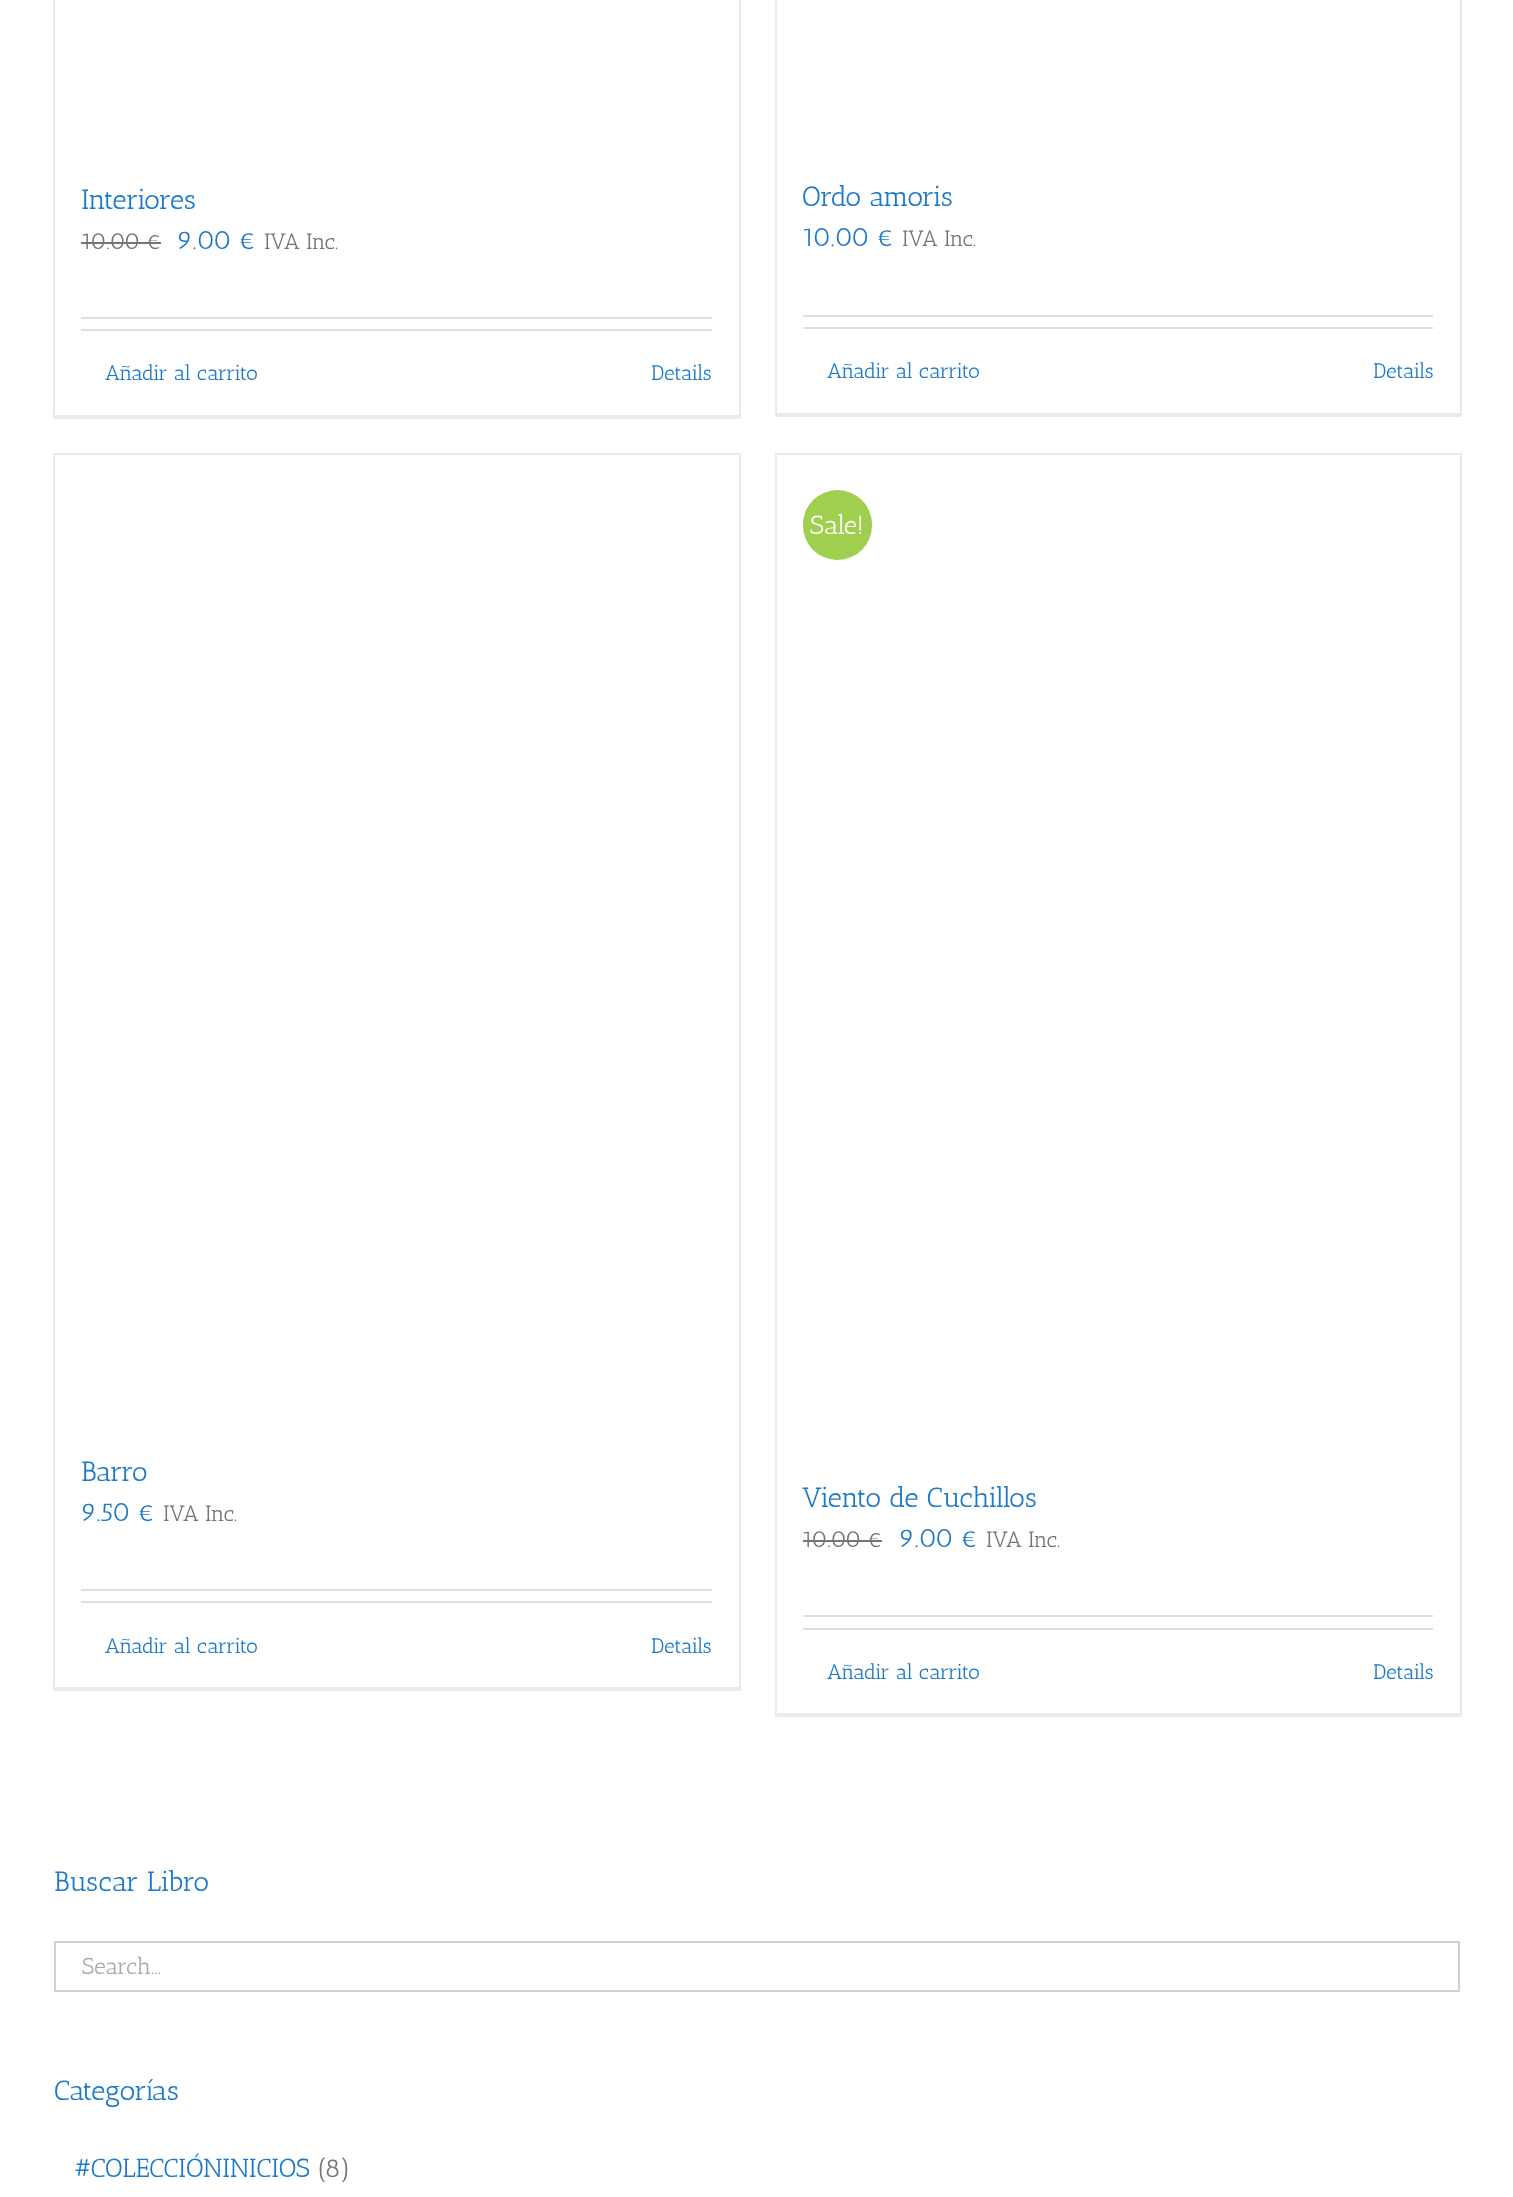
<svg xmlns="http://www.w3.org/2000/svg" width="1513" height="2197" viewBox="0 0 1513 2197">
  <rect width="100%" height="100%" fill="rgb(255,255,255)"/>
  <rect x="739" y="0" width="2" height="418" fill="rgb(235,234,234)"/>
  <rect x="53" y="415" width="687" height="4" fill="rgb(235,234,234)"/>
  <rect x="53" y="0" width="2" height="418" fill="rgb(235,234,234)"/>
  <text x="81" y="209" font-family="Antic Slab" font-size="28" fill="rgb(28,121,199)">Interiores</text>
  <text x="81" y="249" font-family="Antic Slab" font-size="23" fill="rgb(116,116,116)">10.00 €</text>
  <rect x="81" y="242" width="80" height="2" fill="rgb(116,116,116)"/>
  <text x="177" y="249" font-family="Antic Slab" font-size="26.25" fill="rgb(28,121,199)">9.00 €</text>
  <text x="264" y="249" font-family="Antic Slab" font-size="22" fill="rgb(116,116,116)">IVA Inc.</text>
  <rect x="81" y="317" width="631" height="2" fill="rgb(224,222,222)"/>
  <rect x="81" y="329" width="631" height="2" fill="rgb(224,222,222)"/>
  <g font-family="Antic Slab" font-size="21" fill="rgb(28,121,199)">
    <text x="105" y="380">Añadir al carrito</text>
    <text x="651" y="380">Details</text>
  </g>
  <rect x="1460" y="0" width="2" height="417" fill="rgb(235,234,234)"/>
  <rect x="775" y="413" width="686" height="4" fill="rgb(235,234,234)"/>
  <rect x="775" y="0" width="2" height="417" fill="rgb(235,234,234)"/>
  <text x="802" y="206" font-family="Antic Slab" font-size="28" fill="rgb(28,121,199)">Ordo amoris</text>
  <text x="802" y="246" font-family="Antic Slab" font-size="26.25" fill="rgb(28,121,199)">10.00 €</text>
  <text x="902" y="246" font-family="Antic Slab" font-size="22" fill="rgb(116,116,116)">IVA Inc.</text>
  <rect x="803" y="315" width="630" height="2" fill="rgb(224,222,222)"/>
  <rect x="803" y="327" width="630" height="2" fill="rgb(224,222,222)"/>
  <g font-family="Antic Slab" font-size="21" fill="rgb(28,121,199)">
    <text x="827" y="378">Añadir al carrito</text>
    <text x="1373" y="378">Details</text>
  </g>
  <rect x="53" y="453" width="687" height="2" fill="rgb(235,234,234)"/>
  <rect x="739" y="453" width="2" height="1238" fill="rgb(235,234,234)"/>
  <rect x="53" y="1687" width="687" height="4" fill="rgb(235,234,234)"/>
  <rect x="53" y="453" width="2" height="1238" fill="rgb(235,234,234)"/>
  <text x="81" y="1481" font-family="Antic Slab" font-size="28" fill="rgb(28,121,199)">Barro</text>
  <text x="81" y="1521" font-family="Antic Slab" font-size="26.25" fill="rgb(28,121,199)">9.50 €</text>
  <text x="163" y="1521" font-family="Antic Slab" font-size="22" fill="rgb(116,116,116)">IVA Inc.</text>
  <rect x="81" y="1589" width="631" height="2" fill="rgb(224,222,222)"/>
  <rect x="81" y="1601" width="631" height="2" fill="rgb(224,222,222)"/>
  <g font-family="Antic Slab" font-size="21" fill="rgb(28,121,199)">
    <text x="105" y="1653">Añadir al carrito</text>
    <text x="651" y="1653">Details</text>
  </g>
  <rect x="775" y="453" width="686" height="2" fill="rgb(235,234,234)"/>
  <rect x="1460" y="453" width="2" height="1264" fill="rgb(235,234,234)"/>
  <rect x="775" y="1713" width="686" height="4" fill="rgb(235,234,234)"/>
  <rect x="775" y="453" width="2" height="1264" fill="rgb(235,234,234)"/>
  <rect x="803" y="490" width="69" height="70" rx="34.5" fill="rgb(160,206,78)"/>
  <text x="810" y="534" font-family="Antic Slab" font-size="26.25" fill="rgb(255,255,255)">Sale!</text>
  <text x="802" y="1507" font-family="Antic Slab" font-size="28" fill="rgb(28,121,199)">Viento de Cuchillos</text>
  <text x="802" y="1547" font-family="Antic Slab" font-size="23" fill="rgb(116,116,116)">10.00 €</text>
  <rect x="803" y="1540" width="79" height="2" fill="rgb(116,116,116)"/>
  <text x="899" y="1547" font-family="Antic Slab" font-size="26.25" fill="rgb(28,121,199)">9.00 €</text>
  <text x="986" y="1547" font-family="Antic Slab" font-size="22" fill="rgb(116,116,116)">IVA Inc.</text>
  <rect x="803" y="1615" width="630" height="2" fill="rgb(224,222,222)"/>
  <rect x="803" y="1628" width="630" height="2" fill="rgb(224,222,222)"/>
  <g font-family="Antic Slab" font-size="21" fill="rgb(28,121,199)">
    <text x="827" y="1679">Añadir al carrito</text>
    <text x="1373" y="1679">Details</text>
  </g>
  <text x="54" y="1891" font-family="Antic Slab" font-size="28" fill="rgb(28,121,199)">Buscar Libro</text>
  <rect x="55" y="1942" width="1404" height="49" fill="none" stroke="rgb(210,210,210)" stroke-width="2"/>
  <text x="82" y="1974" font-family="Antic Slab" font-size="23" fill="rgb(170,169,169)">Search...</text>
  <text x="54" y="2100" font-family="Antic Slab" font-size="28" fill="rgb(28,121,199)">Categorías</text>
  <text x="75" y="2177" font-family="Antic Slab" font-size="26.25" fill="rgb(28,121,199)">#COLECCIÓNINICIOS</text>
  <text x="318" y="2177" font-family="Antic Slab" font-size="26.25" fill="rgb(116,116,116)">(8)</text>
</svg>
